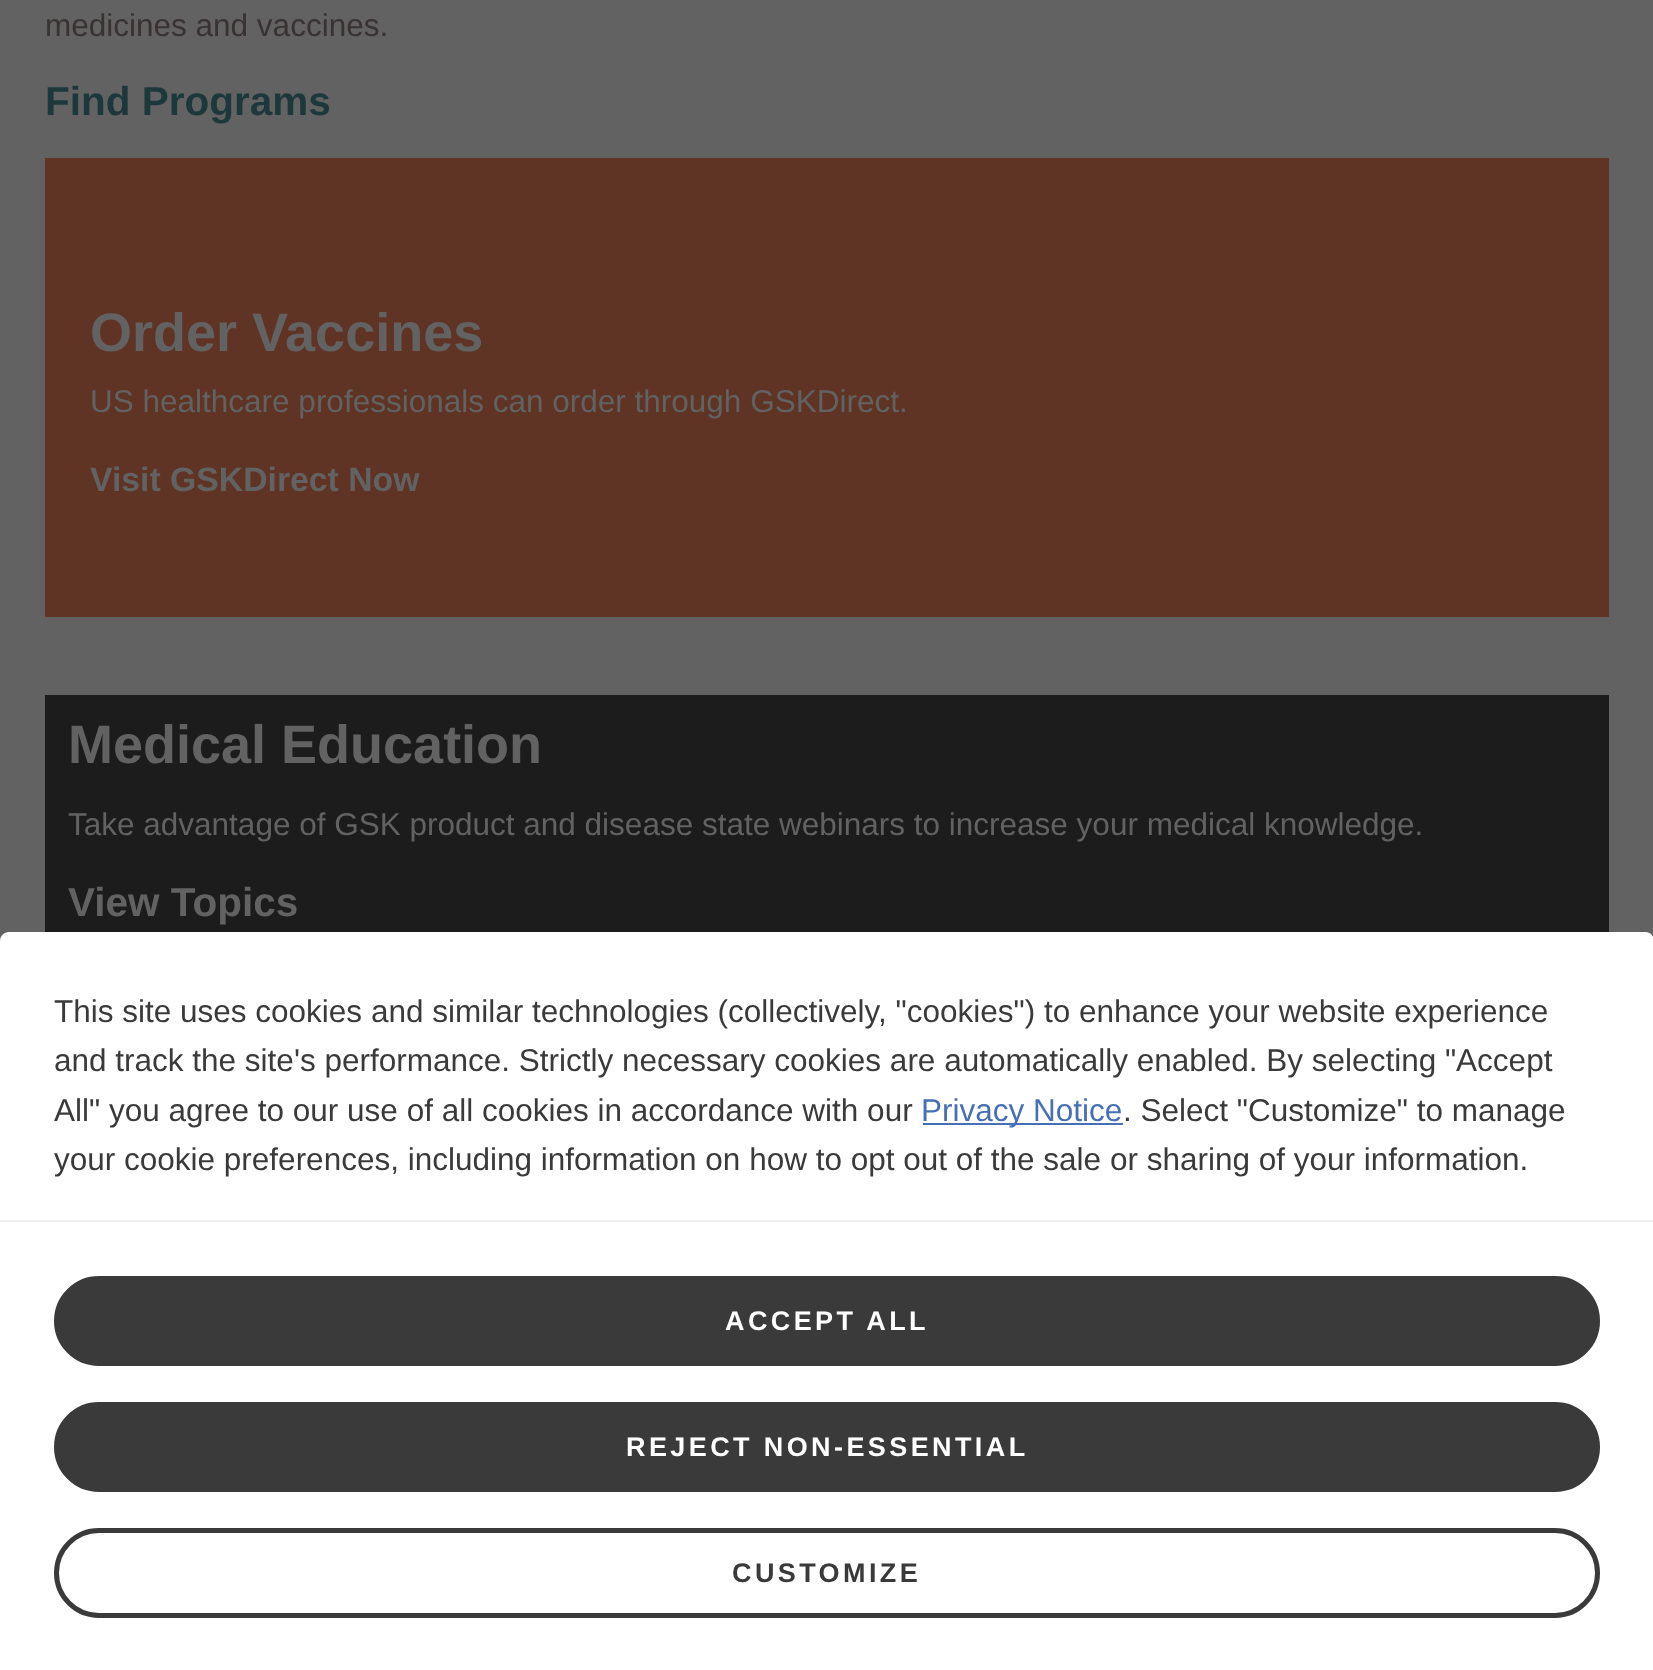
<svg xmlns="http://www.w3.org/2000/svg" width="1653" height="1670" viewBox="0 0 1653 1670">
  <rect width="100%" height="100%" fill="rgb(98,98,98)"/>
  <text x="45" y="36" font-family="Liberation Sans" font-size="31.5" fill="rgb(56,51,50)">medicines and vaccines.</text>
  <text x="45" y="115" font-family="Liberation Sans" font-size="40.5" font-weight="bold" fill="rgb(28,56,59)">Find Programs</text>
  <rect x="45" y="158" width="1564" height="459" fill="rgb(95,52,37)"/>
  <text x="90" y="351" font-family="Liberation Sans" font-size="54" font-weight="bold" fill="rgb(98,98,98)">Order Vaccines</text>
  <text x="90" y="412" font-family="Liberation Sans" font-size="31.5" fill="rgb(98,98,98)">US healthcare professionals can order through GSKDirect.</text>
  <text x="90" y="491" font-family="Liberation Sans" font-size="33.75" font-weight="bold" fill="rgb(98,98,98)">Visit GSKDirect Now</text>
  <rect x="45" y="695" width="1564" height="237" fill="rgb(28,28,28)"/>
  <text x="68" y="763" font-family="Liberation Sans" font-size="54" font-weight="bold" fill="rgb(98,98,98)">Medical Education</text>
  <text x="68" y="835" font-family="Liberation Sans" font-size="31.5" fill="rgb(98,98,98)">Take advantage of GSK product and disease state webinars to increase your medical knowledge.</text>
  <text x="68" y="916" font-family="Liberation Sans" font-size="40.5" font-weight="bold" fill="rgb(98,98,98)">View Topics</text>
  <path d="M9 932H1645C1650 932 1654 936 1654 941V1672H0V941C0 936 4 932 9 932Z" fill="rgb(255,255,255)"/>
  <g font-family="Liberation Sans" font-size="31.5" fill="rgb(58,58,58)">
    <text>
      <tspan x="54" y="1022">This site uses cookies and similar technologies (collectively, "cookies") to enhance your website experience</tspan>
      <tspan x="54" y="1071">and track the site's performance. Strictly necessary cookies are automatically enabled. By selecting "Accept</tspan>
      <tspan x="54" y="1121">All" you agree to our use of all cookies in accordance with our</tspan>
    </text>
  </g>
  <rect x="923" y="1123" width="200" height="2" fill="rgb(71,111,181)"/>
  <text x="921" y="1121" font-family="Liberation Sans" font-size="31.5" fill="rgb(71,111,181)">Privacy Notice</text>
  <g font-family="Liberation Sans" font-size="31.5" fill="rgb(58,58,58)">
    <text x="1123" y="1121">. Select "Customize" to manage</text>
    <text x="54" y="1170">your cookie preferences, including information on how to opt out of the sale or sharing of your information.</text>
  </g>
  <rect x="0" y="1220" width="1653" height="2" fill="rgb(239,239,237)"/>
  <rect x="56.5" y="1278.5" width="1541" height="85" rx="42.5" fill="rgb(58,58,58)" stroke="rgb(58,58,58)" stroke-width="5"/>
  <text x="725" y="1330" font-family="Liberation Sans" font-size="27" font-weight="bold" letter-spacing="3.4" fill="rgb(255,255,255)">ACCEPT ALL</text>
  <rect x="56.5" y="1404.5" width="1541" height="85" rx="42.5" fill="rgb(58,58,58)" stroke="rgb(58,58,58)" stroke-width="5"/>
  <text x="626" y="1456" font-family="Liberation Sans" font-size="27" font-weight="bold" letter-spacing="3.4" fill="rgb(255,255,255)">REJECT NON-ESSENTIAL</text>
  <rect x="56.5" y="1530.5" width="1541" height="85" rx="42.5" fill="none" stroke="rgb(58,58,58)" stroke-width="5"/>
  <text x="732" y="1582" font-family="Liberation Sans" font-size="27" font-weight="bold" letter-spacing="3.4" fill="rgb(58,58,58)">CUSTOMIZE</text>
</svg>
